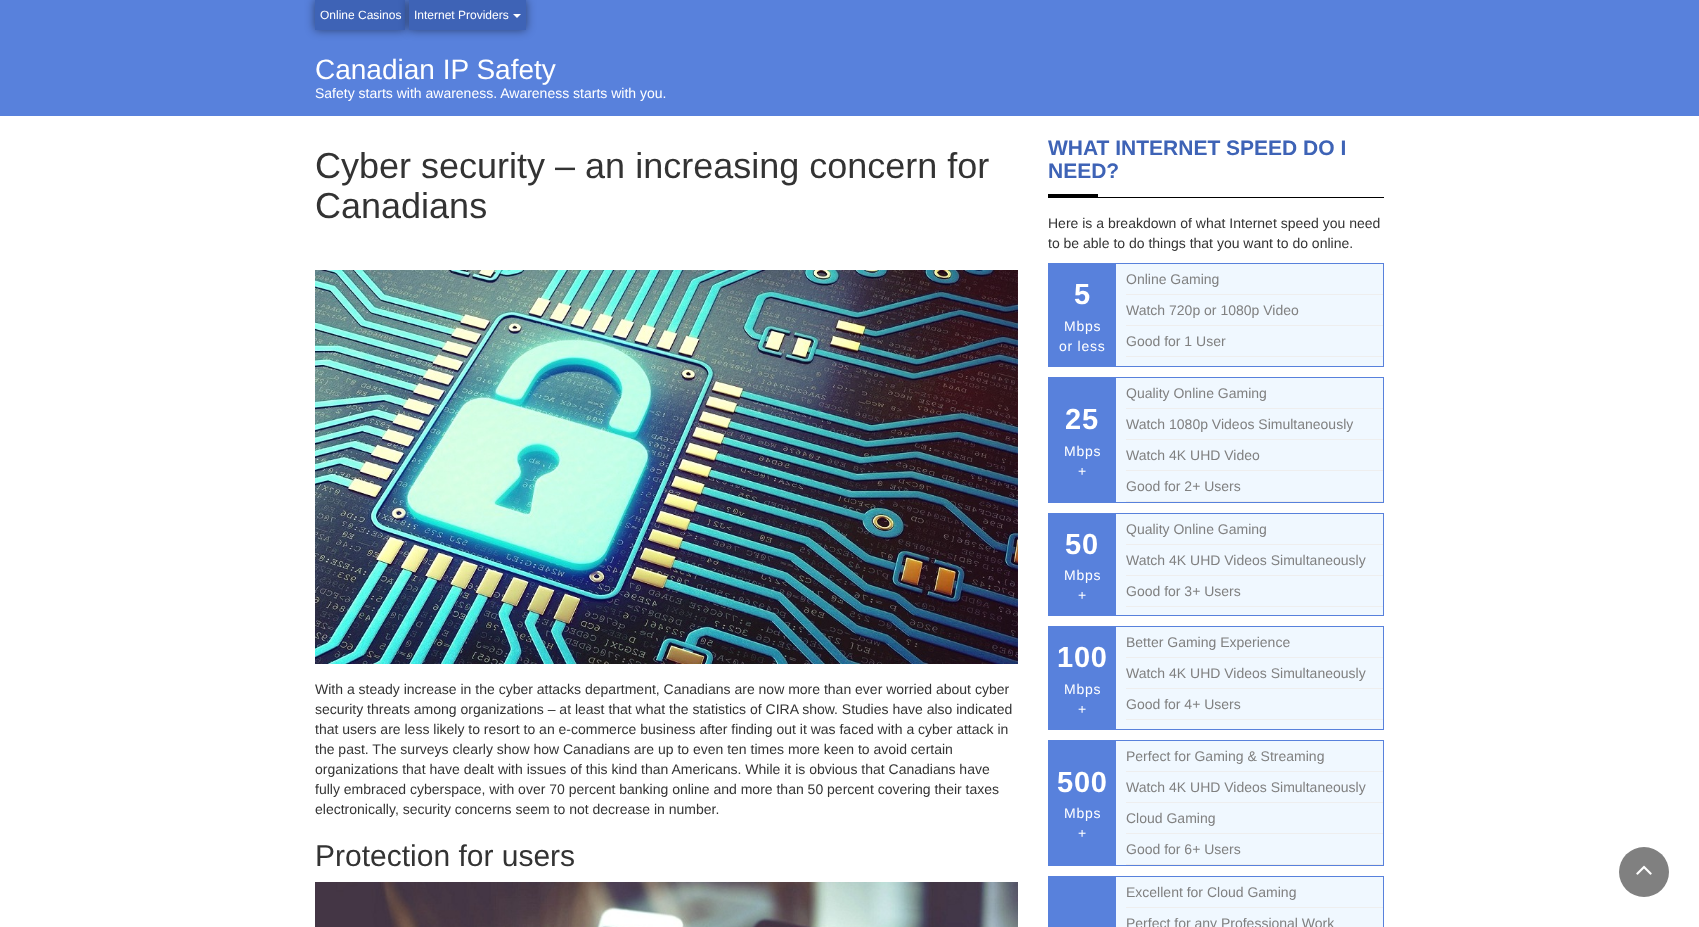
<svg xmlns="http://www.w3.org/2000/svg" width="1699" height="927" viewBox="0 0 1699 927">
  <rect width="100%" height="100%" fill="rgb(255,255,255)"/>
  <rect x="0" y="0" width="1699" height="116" fill="rgb(88,129,220)"/>
  <rect x="315" y="0" width="90" height="30" fill="rgba(0,0,0,0.5)" filter="blur(5px)"/>
  <rect x="315" y="0" width="90" height="30" fill="rgb(62,99,182)"/>
  <text x="320" y="19" font-family="Liberation Sans" font-size="12" fill="rgb(255,255,255)">Online Casinos</text>
  <rect x="409" y="0" width="117" height="30" fill="rgba(0,0,0,0.5)" filter="blur(5px)"/>
  <rect x="409" y="0" width="117" height="30" fill="rgb(62,99,182)"/>
  <text x="414" y="19" font-family="Liberation Sans" font-size="12" fill="rgb(255,255,255)">Internet Providers</text>
  <path d="M513 14H521L517 18Z" fill="rgb(255,255,255)"/>
  <text x="315" y="79" font-family="Liberation Sans" font-size="28" fill="rgb(255,255,255)">Canadian IP Safety</text>
  <text x="315" y="98" font-family="Liberation Sans" font-size="14" fill="rgb(255,255,255)">Safety starts with awareness. Awareness starts with you.</text>
  <g font-family="Liberation Sans" font-size="36" fill="rgb(51,51,51)">
    <text>
      <tspan x="315" y="178">Cyber security – an increasing concern for</tspan>
      <tspan x="315" y="218">Canadians</tspan>
    </text>
  </g>
  <image x="315" y="270" width="703" height="394" href="pic1.png"/>
  <g font-family="Liberation Sans" font-size="14" fill="rgb(51,51,51)">
    <text>
      <tspan x="315" y="694">With a steady increase in the cyber attacks department, Canadians are now more than ever worried about cyber</tspan>
      <tspan x="315" y="714">security threats among organizations – at least that what the statistics of CIRA show. Studies have also indicated</tspan>
      <tspan x="315" y="734">that users are less likely to resort to an e-commerce business after finding out it was faced with a cyber attack in</tspan>
      <tspan x="315" y="754">the past. The surveys clearly show how Canadians are up to even ten times more keen to avoid certain</tspan>
      <tspan x="315" y="774">organizations that have dealt with issues of this kind than Americans. While it is obvious that Canadians have</tspan>
      <tspan x="315" y="794">fully embraced cyberspace, with over 70 percent banking online and more than 50 percent covering their taxes</tspan>
      <tspan x="315" y="814">electronically, security concerns seem to not decrease in number.</tspan>
    </text>
  </g>
  <text x="315" y="866" font-family="Liberation Sans" font-size="30" fill="rgb(51,51,51)">Protection for users</text>
  <image x="315" y="882" width="703" height="45" href="pic2.png"/>
  <rect x="1098" y="197" width="286" height="1" fill="rgb(0,0,0)"/>
  <g font-family="Liberation Sans" font-size="21" font-weight="bold" fill="rgb(62,99,182)">
    <text>
      <tspan x="1048" y="155">WHAT INTERNET SPEED DO I</tspan>
      <tspan x="1048" y="178">NEED?</tspan>
    </text>
  </g>
  <rect x="1048" y="194" width="50" height="4" fill="rgb(0,0,0)"/>
  <g font-family="Liberation Sans" font-size="14" fill="rgb(51,51,51)">
    <text>
      <tspan x="1048" y="228">Here is a breakdown of what Internet speed you need</tspan>
      <tspan x="1048" y="248">to be able to do things that you want to do online.</tspan>
    </text>
  </g>
  <rect x="1048.5" y="263.5" width="335" height="103" fill="none" stroke="rgb(88,129,220)"/>
  <rect x="1049" y="264" width="67" height="102" fill="rgb(88,129,220)"/>
  <text x="1074" y="304" font-family="Liberation Sans" font-size="29" font-weight="bold" letter-spacing="0.75" fill="rgb(255,255,255)">5</text>
  <g font-family="Liberation Sans" font-size="14" letter-spacing="0.75" fill="rgb(255,255,255)">
    <text x="1064" y="331">Mbps</text>
    <text x="1059" y="351">or less</text>
  </g>
  <rect x="1116" y="264" width="267" height="102" fill="rgb(240,248,255)"/>
  <rect x="1126" y="294" width="257" height="1" fill="rgb(238,238,238)"/>
  <text x="1126" y="284" font-family="Liberation Sans" font-size="14" fill="rgb(128,128,128)">Online Gaming</text>
  <rect x="1126" y="325" width="257" height="1" fill="rgb(238,238,238)"/>
  <text x="1126" y="315" font-family="Liberation Sans" font-size="14" fill="rgb(128,128,128)">Watch 720p or 1080p Video</text>
  <rect x="1126" y="356" width="257" height="1" fill="rgb(238,238,238)"/>
  <text x="1126" y="346" font-family="Liberation Sans" font-size="14" fill="rgb(128,128,128)">Good for 1 User</text>
  <rect x="1048.5" y="377.5" width="335" height="125" fill="none" stroke="rgb(88,129,220)"/>
  <rect x="1049" y="378" width="67" height="124" fill="rgb(88,129,220)"/>
  <text x="1065" y="429" font-family="Liberation Sans" font-size="29" font-weight="bold" letter-spacing="0.75" fill="rgb(255,255,255)">25</text>
  <g font-family="Liberation Sans" font-size="14" letter-spacing="0.75" fill="rgb(255,255,255)">
    <text x="1064" y="456">Mbps</text>
    <text x="1078" y="476">+</text>
  </g>
  <rect x="1116" y="378" width="267" height="124" fill="rgb(240,248,255)"/>
  <rect x="1126" y="408" width="257" height="1" fill="rgb(238,238,238)"/>
  <text x="1126" y="398" font-family="Liberation Sans" font-size="14" fill="rgb(128,128,128)">Quality Online Gaming</text>
  <rect x="1126" y="439" width="257" height="1" fill="rgb(238,238,238)"/>
  <text x="1126" y="429" font-family="Liberation Sans" font-size="14" fill="rgb(128,128,128)">Watch 1080p Videos Simultaneously</text>
  <rect x="1126" y="470" width="257" height="1" fill="rgb(238,238,238)"/>
  <text x="1126" y="460" font-family="Liberation Sans" font-size="14" fill="rgb(128,128,128)">Watch 4K UHD Video</text>
  <rect x="1126" y="501" width="257" height="1" fill="rgb(238,238,238)"/>
  <text x="1126" y="491" font-family="Liberation Sans" font-size="14" fill="rgb(128,128,128)">Good for 2+ Users</text>
  <rect x="1048.5" y="513.5" width="335" height="102" fill="none" stroke="rgb(88,129,220)"/>
  <rect x="1049" y="514" width="67" height="101" fill="rgb(88,129,220)"/>
  <text x="1065" y="554" font-family="Liberation Sans" font-size="29" font-weight="bold" letter-spacing="0.75" fill="rgb(255,255,255)">50</text>
  <g font-family="Liberation Sans" font-size="14" letter-spacing="0.75" fill="rgb(255,255,255)">
    <text x="1064" y="580">Mbps</text>
    <text x="1078" y="600">+</text>
  </g>
  <rect x="1116" y="514" width="267" height="101" fill="rgb(240,248,255)"/>
  <rect x="1126" y="544" width="257" height="1" fill="rgb(238,238,238)"/>
  <text x="1126" y="534" font-family="Liberation Sans" font-size="14" fill="rgb(128,128,128)">Quality Online Gaming</text>
  <rect x="1126" y="575" width="257" height="1" fill="rgb(238,238,238)"/>
  <text x="1126" y="565" font-family="Liberation Sans" font-size="14" fill="rgb(128,128,128)">Watch 4K UHD Videos Simultaneously</text>
  <rect x="1126" y="606" width="257" height="1" fill="rgb(238,238,238)"/>
  <text x="1126" y="596" font-family="Liberation Sans" font-size="14" fill="rgb(128,128,128)">Good for 3+ Users</text>
  <rect x="1048.5" y="626.5" width="335" height="103" fill="none" stroke="rgb(88,129,220)"/>
  <rect x="1049" y="627" width="67" height="102" fill="rgb(88,129,220)"/>
  <text x="1057" y="667" font-family="Liberation Sans" font-size="29" font-weight="bold" letter-spacing="0.75" fill="rgb(255,255,255)">100</text>
  <g font-family="Liberation Sans" font-size="14" letter-spacing="0.75" fill="rgb(255,255,255)">
    <text x="1064" y="694">Mbps</text>
    <text x="1078" y="714">+</text>
  </g>
  <rect x="1116" y="627" width="267" height="102" fill="rgb(240,248,255)"/>
  <rect x="1126" y="657" width="257" height="1" fill="rgb(238,238,238)"/>
  <text x="1126" y="647" font-family="Liberation Sans" font-size="14" fill="rgb(128,128,128)">Better Gaming Experience</text>
  <rect x="1126" y="688" width="257" height="1" fill="rgb(238,238,238)"/>
  <text x="1126" y="678" font-family="Liberation Sans" font-size="14" fill="rgb(128,128,128)">Watch 4K UHD Videos Simultaneously</text>
  <rect x="1126" y="719" width="257" height="1" fill="rgb(238,238,238)"/>
  <text x="1126" y="709" font-family="Liberation Sans" font-size="14" fill="rgb(128,128,128)">Good for 4+ Users</text>
  <rect x="1048.5" y="740.5" width="335" height="125" fill="none" stroke="rgb(88,129,220)"/>
  <rect x="1049" y="741" width="67" height="124" fill="rgb(88,129,220)"/>
  <text x="1057" y="792" font-family="Liberation Sans" font-size="29" font-weight="bold" letter-spacing="0.75" fill="rgb(255,255,255)">500</text>
  <g font-family="Liberation Sans" font-size="14" letter-spacing="0.75" fill="rgb(255,255,255)">
    <text x="1064" y="818">Mbps</text>
    <text x="1078" y="838">+</text>
  </g>
  <rect x="1116" y="741" width="267" height="124" fill="rgb(240,248,255)"/>
  <rect x="1126" y="771" width="257" height="1" fill="rgb(238,238,238)"/>
  <text x="1126" y="761" font-family="Liberation Sans" font-size="14" fill="rgb(128,128,128)">Perfect for Gaming &amp; Streaming</text>
  <rect x="1126" y="802" width="257" height="1" fill="rgb(238,238,238)"/>
  <text x="1126" y="792" font-family="Liberation Sans" font-size="14" fill="rgb(128,128,128)">Watch 4K UHD Videos Simultaneously</text>
  <rect x="1126" y="833" width="257" height="1" fill="rgb(238,238,238)"/>
  <text x="1126" y="823" font-family="Liberation Sans" font-size="14" fill="rgb(128,128,128)">Cloud Gaming</text>
  <rect x="1126" y="864" width="257" height="1" fill="rgb(238,238,238)"/>
  <text x="1126" y="854" font-family="Liberation Sans" font-size="14" fill="rgb(128,128,128)">Good for 6+ Users</text>
  <rect x="1048.5" y="876.5" width="335" height="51" fill="none" stroke="rgb(88,129,220)"/>
  <rect x="1049" y="877" width="67" height="50" fill="rgb(88,129,220)"/>
  <rect x="1116" y="877" width="267" height="50" fill="rgb(240,248,255)"/>
  <rect x="1126" y="907" width="257" height="1" fill="rgb(238,238,238)"/>
  <g font-family="Liberation Sans" font-size="14" fill="rgb(128,128,128)">
    <text x="1126" y="897">Excellent for Cloud Gaming</text>
    <text x="1126" y="928">Perfect for any Professional Work</text>
  </g>
  <circle cx="1644" cy="872" r="25" fill="rgb(128,128,128)"/>
  <image x="1636" y="865" width="16" height="10" href="pic3.png"/>
</svg>
